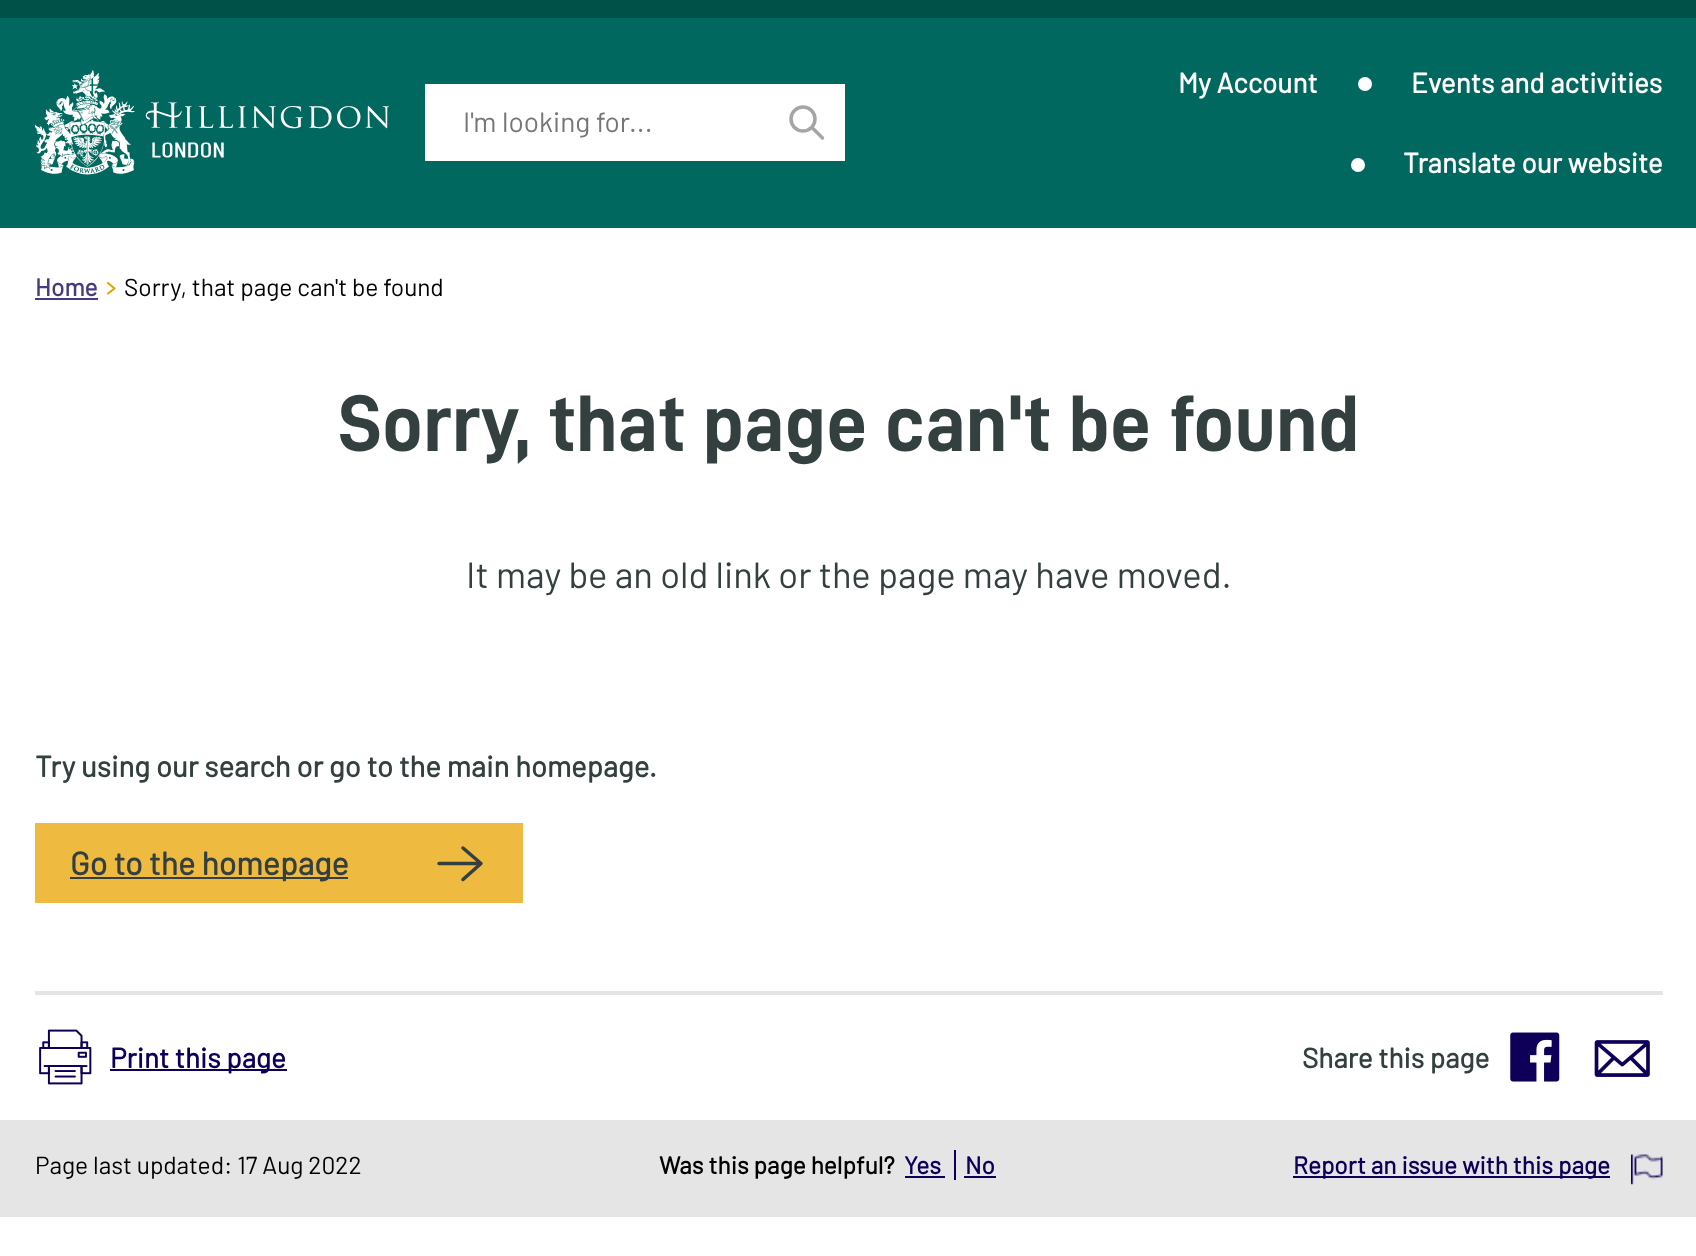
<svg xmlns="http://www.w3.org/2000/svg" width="1696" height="1256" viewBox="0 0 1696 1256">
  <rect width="100%" height="100%" fill="rgb(255,255,255)"/>
  <rect x="0" y="0" width="1696" height="18" fill="rgb(0,81,72)"/>
  <rect x="0" y="18" width="1696" height="210" fill="rgb(0,104,94)"/>
  <image x="35" y="70" width="355" height="105" href="pic1.png"/>
  <rect x="425" y="84" width="420" height="77" fill="rgb(255,255,255)"/>
  <text x="463" y="132" font-family="Barlow" font-size="28" fill="rgb(118,118,118)">I'm looking for...</text>
  <circle cx="803" cy="119" r="12" fill="none" stroke="rgb(165,165,165)" stroke-width="3.5"/>
  <path d="M812.5 128L822.5 138" fill="none" stroke="rgb(165,165,165)" stroke-width="3.5" stroke-linecap="round"/>
  <text x="1178" y="93" font-family="Barlow" font-size="28" font-weight="bold" fill="rgb(255,255,255)">My Account</text>
  <circle cx="1365" cy="84" r="7" fill="rgb(255,255,255)"/>
  <text x="1411" y="93" font-family="Barlow" font-size="28" font-weight="bold" fill="rgb(255,255,255)">Events and activities</text>
  <circle cx="1358" cy="165" r="7" fill="rgb(255,255,255)"/>
  <text x="1403" y="173" font-family="Barlow" font-size="28" font-weight="bold" fill="rgb(255,255,255)">Translate our website</text>
  <text x="35" y="296" font-family="Barlow" font-size="24.5" font-weight="bold" fill="rgb(72,58,126)">Home</text>
  <rect x="35" y="298" width="63" height="2" fill="rgb(72,58,126)"/>
  <path d="M108 293.5L114.5 288.5L108 283" fill="none" stroke="rgb(232,157,0)" stroke-width="2" stroke-linecap="round" stroke-linejoin="round"/>
  <text x="124" y="296" font-family="Barlow" font-size="24.5" fill="rgb(0,0,0)">Sorry, that page can't be found</text>
  <text x="338" y="451" font-family="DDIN" font-size="80.5" font-weight="bold" fill="rgb(52,64,63)">Sorry, that page can't be found</text>
  <text x="466" y="588" font-family="Barlow" font-size="36.4" fill="rgb(52,64,63)">It may be an old link or the page may have moved.</text>
  <text x="35" y="777" font-family="Barlow" font-size="29.4" font-weight="bold" fill="rgb(52,64,63)">Try using our search or go to the main homepage.</text>
  <rect x="35" y="823" width="488" height="80" fill="rgb(239,186,64)"/>
  <rect x="70" y="877" width="278" height="2" fill="rgb(52,64,63)"/>
  <text x="70" y="875" font-family="Barlow" font-size="32.25" font-weight="bold" fill="rgb(52,64,63)">Go to the homepage</text>
  <path d="M479.5 863.5H439M463 879.5L481 863.5L463 848" fill="none" stroke="rgb(52,64,63)" stroke-width="3.5" stroke-linecap="round" stroke-linejoin="round"/>
  <rect x="35" y="991" width="1628" height="4" fill="rgb(229,229,229)"/>
  <image x="39" y="1029" width="53" height="56" href="pic2.png"/>
  <rect x="110" y="1069" width="177" height="2" fill="rgb(14,0,89)"/>
  <text x="110" y="1068" font-family="Barlow" font-size="28" font-weight="bold" fill="rgb(14,0,89)">Print this page</text>
  <text x="1302" y="1068" font-family="Barlow" font-size="28" font-weight="bold" fill="rgb(52,64,63)">Share this page</text>
  <image x="1510" y="1032" width="50" height="50" href="pic3.png"/>
  <image x="1594" y="1040" width="56" height="37" href="pic4.png"/>
  <rect x="0" y="1120" width="1696" height="97" fill="rgb(229,229,229)"/>
  <text x="35" y="1174" font-family="Barlow" font-size="24.5" fill="rgb(0,0,0)">Page last updated: 17 Aug 2022</text>
  <text x="659" y="1174" font-family="Barlow" font-size="24.5" font-weight="bold" fill="rgb(0,0,0)">Was this page helpful?</text>
  <text x="904" y="1174" font-family="Barlow" font-size="24.5" font-weight="bold" fill="rgb(14,0,89)">Yes</text>
  <rect x="954" y="1150" width="2" height="30" fill="rgb(14,0,89)"/>
  <rect x="905" y="1176" width="40" height="2" fill="rgb(14,0,89)"/>
  <text x="965" y="1174" font-family="Barlow" font-size="24.5" font-weight="bold" fill="rgb(14,0,89)">No</text>
  <rect x="964" y="1176" width="32" height="2" fill="rgb(14,0,89)"/>
  <rect x="1293" y="1176" width="317" height="2" fill="rgb(14,0,89)"/>
  <text x="1293" y="1174" font-family="Barlow" font-size="24.5" font-weight="bold" fill="rgb(14,0,89)">Report an issue with this page</text>
  <image x="1631" y="1154" width="32" height="31" href="pic5.png"/>
</svg>
